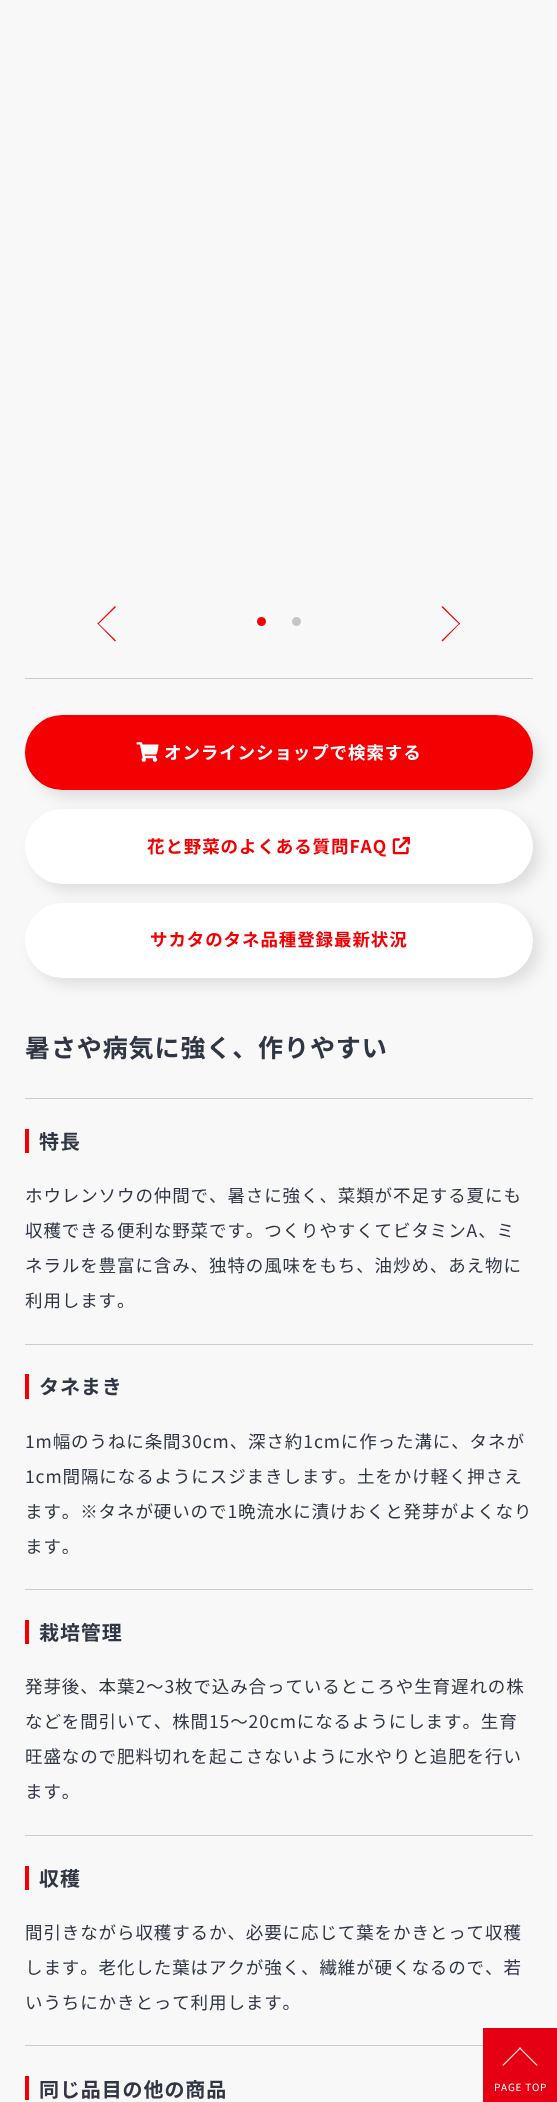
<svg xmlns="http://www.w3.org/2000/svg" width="557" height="2102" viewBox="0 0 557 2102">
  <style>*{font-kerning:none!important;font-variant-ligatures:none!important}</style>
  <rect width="100%" height="100%" fill="rgb(248,248,248)"/>
  <path d="M97.5 623.5L115 606L116 607L98 624.5Z" fill="rgb(245,0,2)"/>
  <path d="M97.5 623.5L98 623L116 640.5L115 641.5Z" fill="rgb(245,0,2)"/>
  <circle cx="261.5" cy="621.5" r="6" fill="rgb(245,0,2)" stroke="rgb(255,255,255)" stroke-width="3"/>
  <circle cx="296.5" cy="621.5" r="6" fill="rgb(198,198,198)" stroke="rgb(249,249,249)" stroke-width="3"/>
  <path d="M442.5 606L460 623.5L459.5 624.5L441.5 607Z" fill="rgb(245,0,2)"/>
  <path d="M459.5 623L460 623.5L442.5 641.5L441.5 640.5Z" fill="rgb(245,0,2)"/>
  <rect x="25" y="678" width="508" height="1" fill="rgb(204,204,204)"/>
  <rect x="33" y="723" width="507" height="75" rx="37.5" fill="rgba(0,0,0,0.1)" filter="blur(7px)"/>
  <rect x="26.5" y="716.5" width="505" height="72" rx="36" fill="rgb(245,0,2)" stroke="rgb(245,0,2)" stroke-width="3"/>
  <image x="136" y="742" width="23" height="20" href="pic1.png"/>
  <text x="164" y="759" font-family="Noto Sans JP" font-size="17.5" font-weight="bold" letter-spacing="0.9" fill="rgb(255,255,255)">オンラインショップで検索する</text>
  <rect x="33" y="816" width="507" height="75" rx="37.5" fill="rgba(0,0,0,0.1)" filter="blur(7px)"/>
  <rect x="25" y="809" width="508" height="75" rx="37.5" fill="rgb(255,255,255)"/>
  <text x="147" y="853" font-family="Noto Sans JP" font-size="17.5" font-weight="bold" letter-spacing="0.9" fill="rgb(245,0,2)">花と野菜のよくある質問FAQ</text>
  <image x="392" y="837" width="18" height="18" href="pic2.png"/>
  <rect x="33" y="910" width="507" height="75" rx="37.5" fill="rgba(0,0,0,0.1)" filter="blur(7px)"/>
  <rect x="25" y="903" width="508" height="75" rx="37.5" fill="rgb(255,255,255)"/>
  <text x="150" y="946" font-family="Noto Sans JP" font-size="17.5" font-weight="bold" letter-spacing="0.9" fill="rgb(245,0,2)">サカタのタネ品種登録最新状況</text>
  <text x="25" y="1057" font-family="Noto Sans JP" font-size="25" font-weight="bold" letter-spacing="0.9" fill="rgb(48,54,67)">暑さや病気に強く、作りやすい</text>
  <rect x="25" y="1098" width="508" height="1" fill="rgb(204,204,204)"/>
  <rect x="25" y="1129" width="4" height="24" fill="rgb(245,0,2)"/>
  <text x="39" y="1149" font-family="Noto Sans JP" font-size="20" font-weight="bold" letter-spacing="0.9" fill="rgb(48,54,67)">特長</text>
  <g font-family="Noto Sans JP" font-size="17.5" letter-spacing="0.9" fill="rgb(48,54,67)">
    <text x="25" y="1202">ホウレンソウの仲間で、暑さに強く、菜類が不足する夏にも</text>
    <text x="25" y="1237">収穫できる便利な野菜です。つくりやすくてビタミンA、ミ</text>
    <text x="25" y="1272">ネラルを豊富に含み、独特の風味をもち、油炒め、あえ物に</text>
    <text x="25" y="1307">利用します。</text>
  </g>
  <rect x="25" y="1344" width="508" height="1" fill="rgb(204,204,204)"/>
  <rect x="25" y="1374" width="4" height="25" fill="rgb(245,0,2)"/>
  <text x="39" y="1394" font-family="Noto Sans JP" font-size="20" font-weight="bold" letter-spacing="0.9" fill="rgb(48,54,67)">タネまき</text>
  <g font-family="Noto Sans JP" font-size="17.5" letter-spacing="0.9" fill="rgb(48,54,67)">
    <text x="25" y="1448">1m幅のうねに条間30cm、深さ約1cmに作った溝に、タネが</text>
    <text x="25" y="1483">1cm間隔になるようにスジまきします。土をかけ軽く押さえ</text>
    <text x="25" y="1518">ます。※タネが硬いので1晩流水に漬けおくと発芽がよくなり</text>
    <text x="25" y="1553">ます。</text>
  </g>
  <rect x="25" y="1589" width="508" height="1" fill="rgb(204,204,204)"/>
  <rect x="25" y="1620" width="4" height="24" fill="rgb(245,0,2)"/>
  <text x="39" y="1640" font-family="Noto Sans JP" font-size="20" font-weight="bold" letter-spacing="0.9" fill="rgb(48,54,67)">栽培管理</text>
  <g font-family="Noto Sans JP" font-size="17.5" letter-spacing="0.9" fill="rgb(48,54,67)">
    <text x="25" y="1693">発芽後、本葉2～3枚で込み合っているところや生育遅れの株</text>
    <text x="25" y="1728">などを間引いて、株間15～20cmになるようにします。生育</text>
    <text x="25" y="1763">旺盛なので肥料切れを起こさないように水やりと追肥を行い</text>
    <text x="25" y="1798">ます。</text>
  </g>
  <rect x="25" y="1835" width="508" height="1" fill="rgb(204,204,204)"/>
  <rect x="25" y="1866" width="4" height="24" fill="rgb(245,0,2)"/>
  <text x="39" y="1886" font-family="Noto Sans JP" font-size="20" font-weight="bold" letter-spacing="0.9" fill="rgb(48,54,67)">収穫</text>
  <g font-family="Noto Sans JP" font-size="17.5" letter-spacing="0.9" fill="rgb(48,54,67)">
    <text x="25" y="1939">間引きながら収穫するか、必要に応じて葉をかきとって収穫</text>
    <text x="25" y="1974">します。老化した葉はアクが強く、繊維が硬くなるので、若</text>
    <text x="25" y="2009">いうちにかきとって利用します。</text>
  </g>
  <rect x="25" y="2045" width="458" height="1" fill="rgb(204,204,204)"/>
  <rect x="25" y="2076" width="4" height="24" fill="rgb(245,0,2)"/>
  <text x="39" y="2097" font-family="Noto Sans JP" font-size="20" font-weight="bold" letter-spacing="0.9" fill="rgb(48,54,67)">同じ品目の他の商品</text>
  <rect x="483" y="2028" width="74" height="74" fill="rgb(230,0,19)"/>
  <path d="M502.5 2065L520 2047.5L521 2048L503 2066Z" fill="rgb(255,255,255)"/>
  <path d="M519 2048L520 2047.5L537.5 2065L537 2066Z" fill="rgb(255,255,255)"/>
  <text x="494" y="2091" font-family="Noto Sans JP" font-size="10" letter-spacing="0.75" fill="rgb(255,255,255)">PAGE TOP</text>
</svg>
